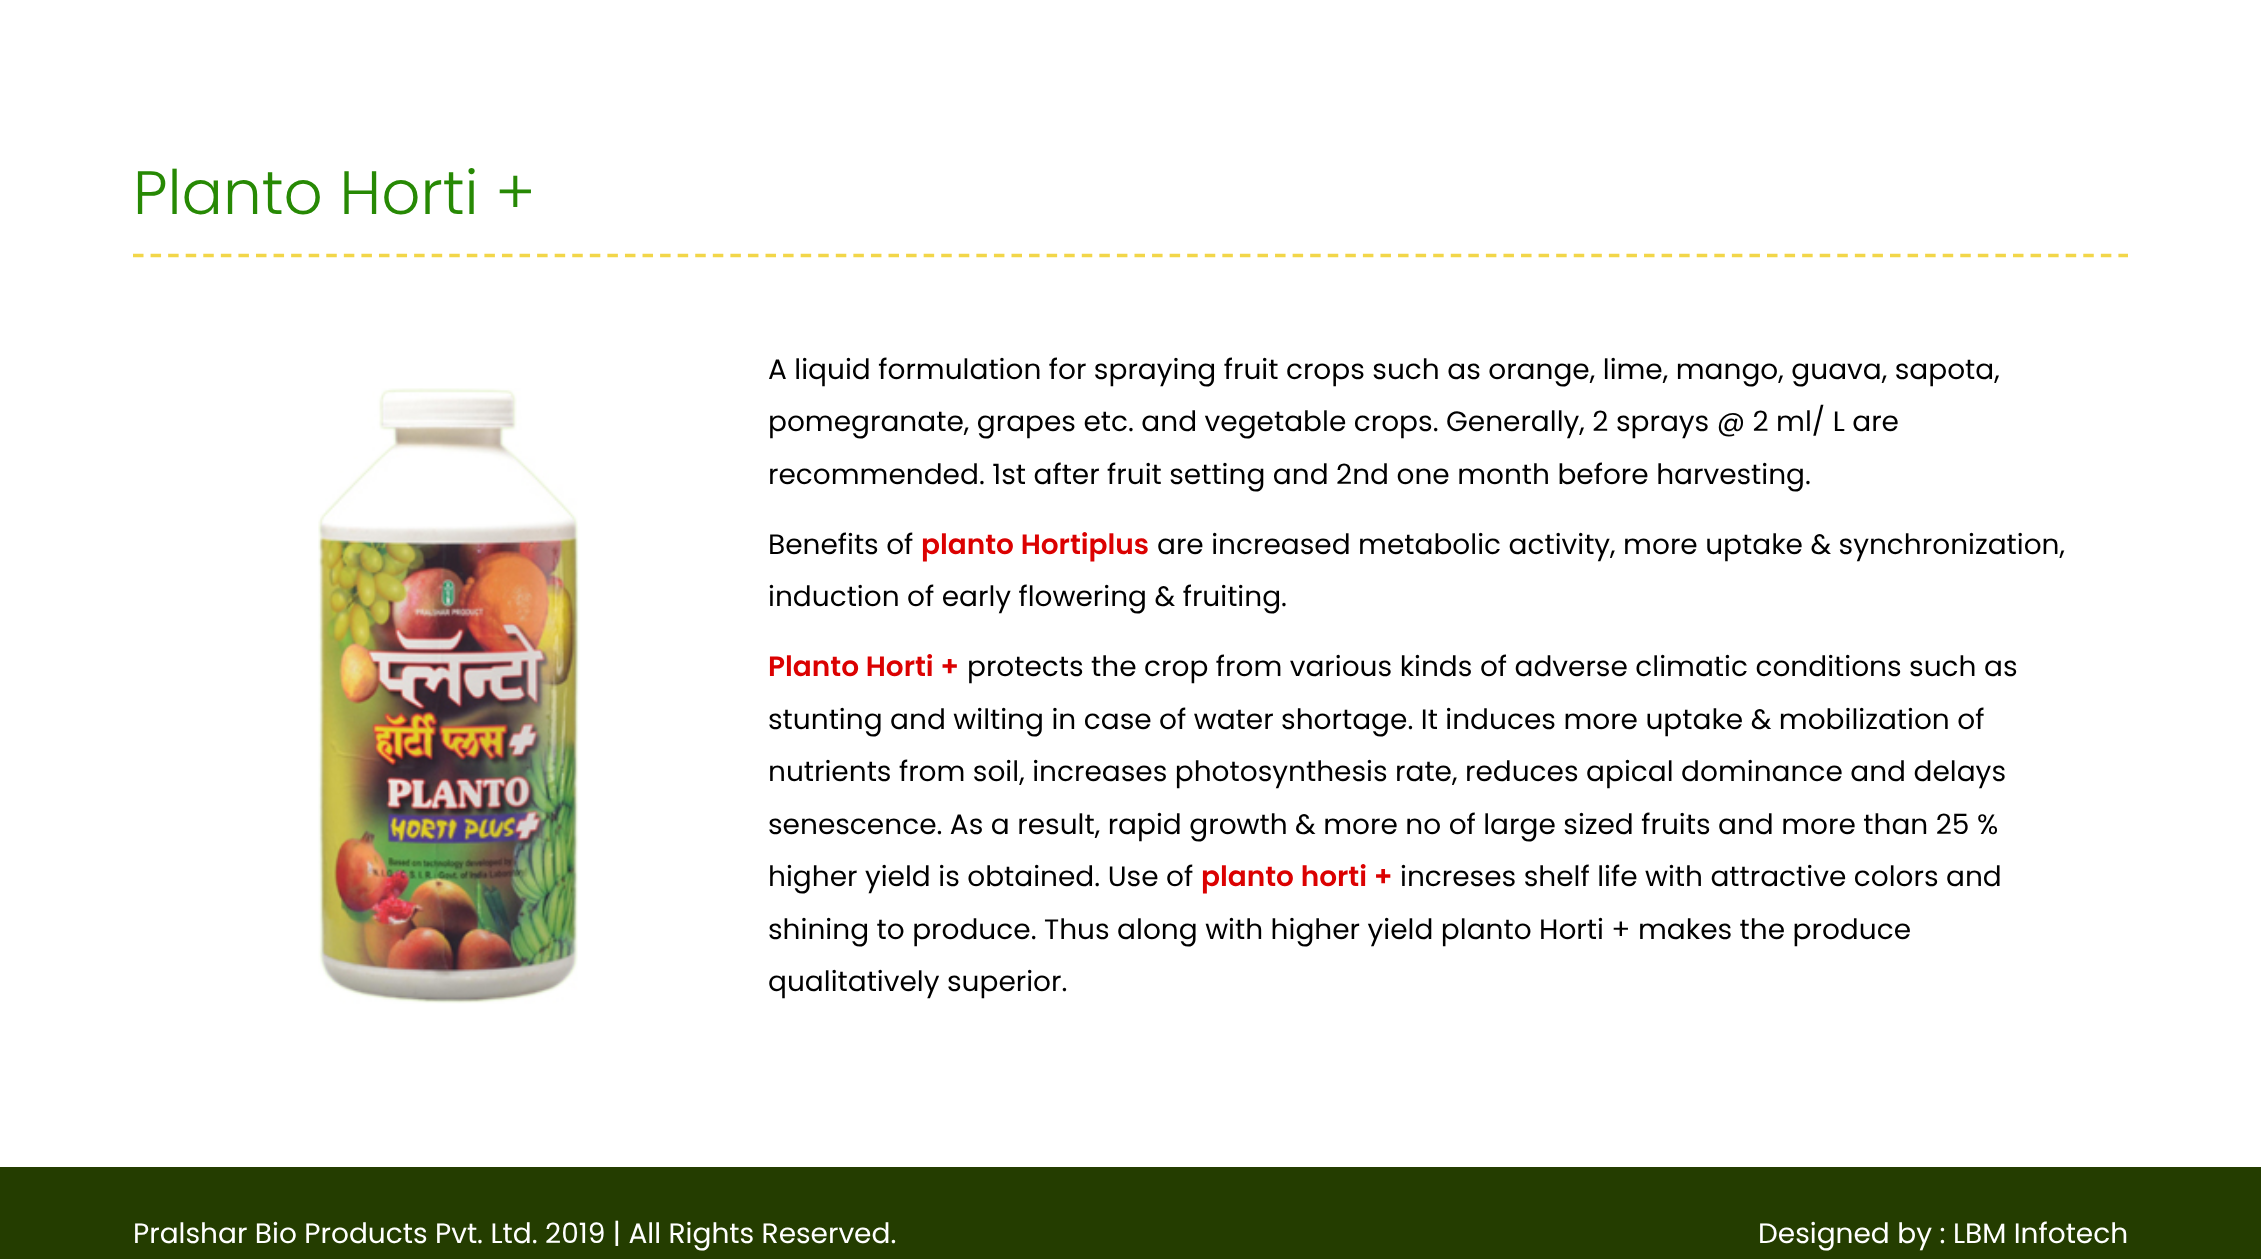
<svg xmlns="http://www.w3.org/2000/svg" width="2261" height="1259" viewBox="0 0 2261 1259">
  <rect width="100%" height="100%" fill="rgb(255,255,255)"/>
  <path d="M133 255.5H2128" fill="none" stroke="rgb(242,214,73)" stroke-width="3.5" stroke-dasharray="10.5 7.07"/>
  <text x="133" y="214" font-family="Poppins" font-size="61.25" font-weight="300" fill="rgb(39,137,4)">Planto Horti +</text>
  <image x="318" y="388" width="262" height="616" href="pic1.png"/>
  <g font-family="Poppins" font-size="28" fill="rgb(0,0,0)">
    <text>
      <tspan x="768" y="379">A liquid formulation for spraying fruit crops such as orange, lime, mango, guava, sapota,</tspan>
      <tspan x="768" y="431">pomegranate, grapes etc. and vegetable crops. Generally, 2 sprays @ 2 ml/ L are</tspan>
      <tspan x="768" y="484">recommended. 1st after fruit setting and 2nd one month before harvesting.</tspan>
    </text>
    <text x="768" y="554">Benefits of</text>
  </g>
  <text x="921" y="554" font-family="Poppins" font-size="28" font-weight="600" fill="rgb(219,1,1)">planto Hortiplus</text>
  <g font-family="Poppins" font-size="28" fill="rgb(0,0,0)">
    <text x="1157" y="554">are increased metabolic activity, more uptake &amp; synchronization,</text>
    <text x="768" y="606">induction of early flowering &amp; fruiting.</text>
  </g>
  <text x="768" y="676" font-family="Poppins" font-size="28" font-weight="600" fill="rgb(219,1,1)">Planto Horti +</text>
  <g font-family="Poppins" font-size="28" fill="rgb(0,0,0)">
    <text x="967" y="676">protects the crop from various kinds of adverse climatic conditions such as</text>
    <text>
      <tspan x="768" y="729">stunting and wilting in case of water shortage. It induces more uptake &amp; mobilization of</tspan>
      <tspan x="768" y="781">nutrients from soil, increases photosynthesis rate, reduces apical dominance and delays</tspan>
      <tspan x="768" y="834">senescence. As a result, rapid growth &amp; more no of large sized fruits and more than 25 %</tspan>
      <tspan x="768" y="886">higher yield is obtained. Use of</tspan>
    </text>
  </g>
  <text x="1201" y="886" font-family="Poppins" font-size="28" font-weight="600" fill="rgb(219,1,1)">planto horti +</text>
  <g font-family="Poppins" font-size="28" fill="rgb(0,0,0)">
    <text x="1400" y="886">increses shelf life with attractive colors and</text>
    <text>
      <tspan x="768" y="939">shining to produce. Thus along with higher yield planto Horti + makes the produce</tspan>
      <tspan x="768" y="991">qualitatively superior.</tspan>
    </text>
  </g>
  <rect x="0" y="1167" width="2261" height="92" fill="rgb(36,61,0)"/>
  <g font-family="Poppins" font-size="28" fill="rgb(255,255,255)">
    <text x="133" y="1243">Pralshar Bio Products Pvt. Ltd. 2019 | All Rights Reserved.</text>
    <text x="1758" y="1243">Designed by : LBM Infotech</text>
  </g>
</svg>
